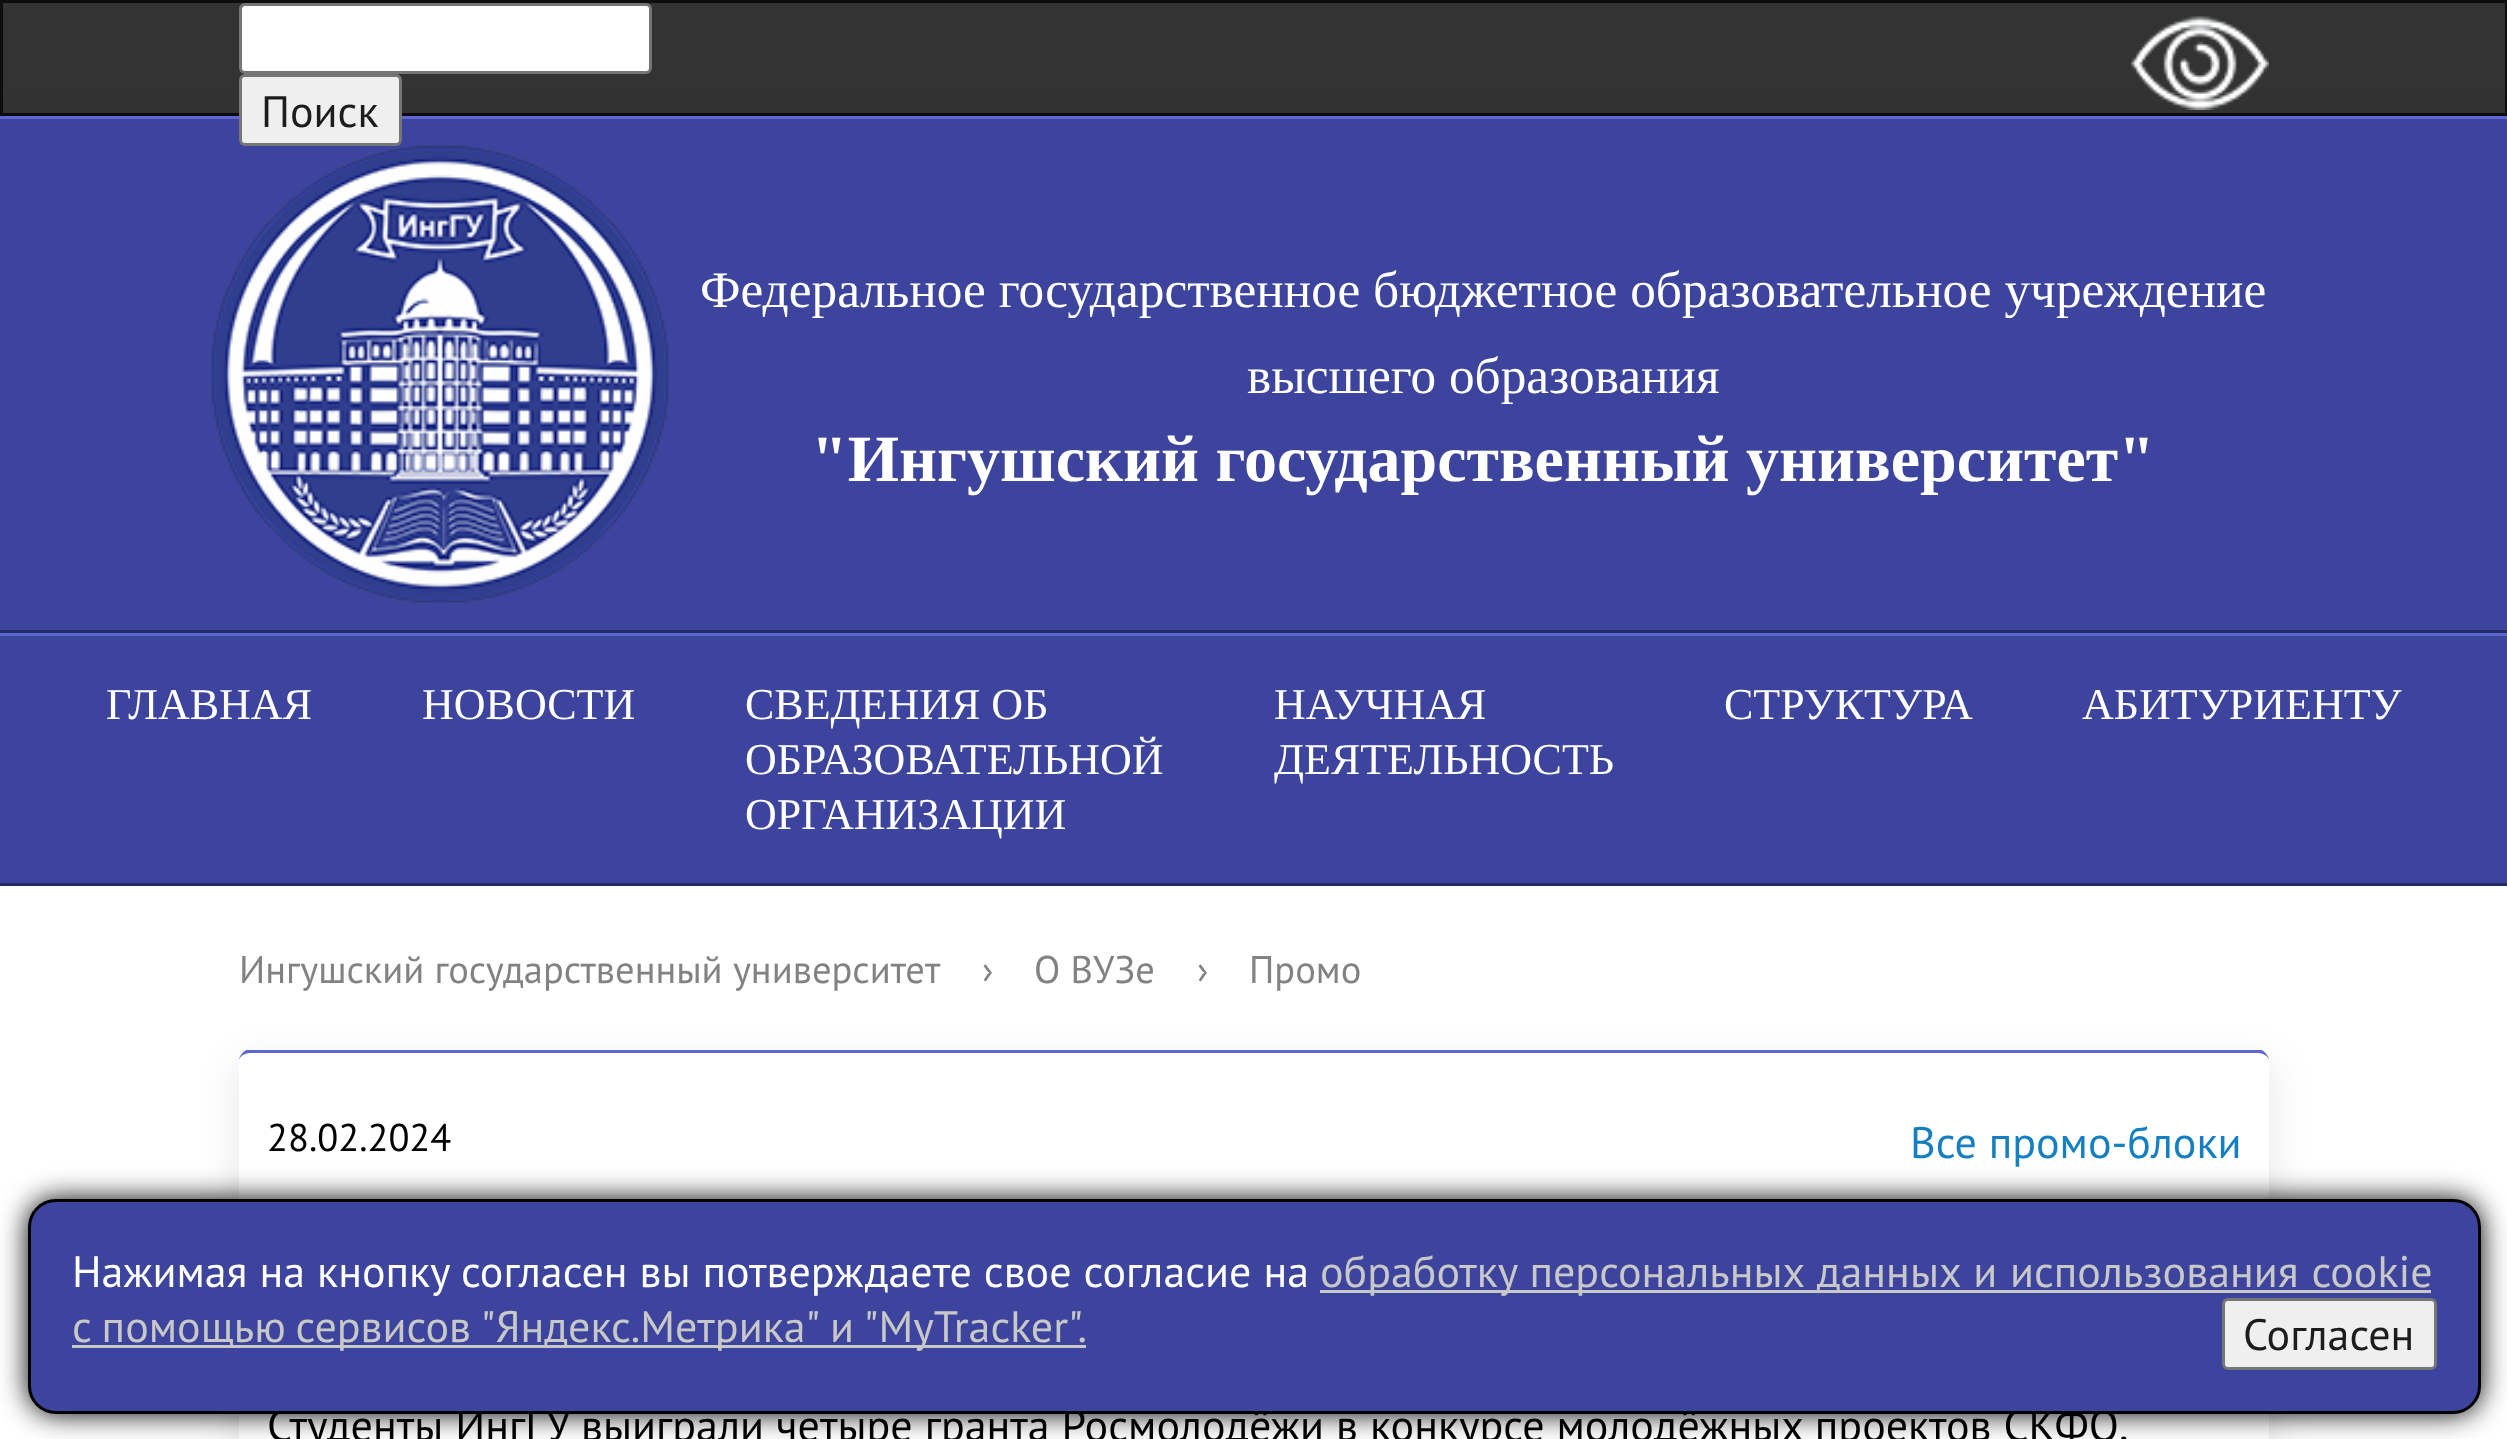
<svg xmlns="http://www.w3.org/2000/svg" width="2507" height="1439" viewBox="0 0 2507 1439">
  <rect width="100%" height="100%" fill="rgb(255,255,255)"/>
  <rect x="1.5" y="1.5" width="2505" height="113" fill="rgb(51,51,51)" stroke="rgb(14,14,14)" stroke-width="3"/>
  <rect x="0" y="129" width="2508" height="517" fill="rgba(0,0,0,0.1)" filter="blur(20.5px)"/>
  <rect x="240.5" y="4.5" width="410" height="68" rx="4.5" fill="rgb(255,255,255)" stroke="rgb(118,118,118)" stroke-width="3"/>
  <rect x="0" y="119" width="2507" height="511" fill="rgb(61,68,158)"/>
  <rect x="0" y="116" width="2507" height="3" fill="rgb(94,102,210)"/>
  <rect x="240.5" y="75.5" width="160" height="69" rx="4.5" fill="rgb(239,239,239)" stroke="rgb(118,118,118)" stroke-width="3"/>
  <text x="261" y="127" font-family="PT Sans" font-size="44" fill="rgb(28,28,28)">Поиск</text>
  <image x="2131" y="16" width="138" height="94" href="pic1.png"/>
  <rect x="0" y="630" width="2507" height="3" fill="rgb(37,42,98)"/>
  <image x="211" y="145" width="458" height="458" href="pic2.png"/>
  <g font-family="Liberation Serif" font-size="51.3" fill="rgb(255,255,255)">
    <text x="700" y="307">Федеральное государственное бюджетное образовательное учреждение</text>
    <text x="1247" y="393">высшего образования</text>
  </g>
  <text x="811" y="481" font-family="Liberation Serif" font-size="66" font-weight="bold" fill="rgb(255,255,255)">"Ингушский государственный университет"</text>
  <rect x="0" y="636" width="2507" height="247" fill="rgb(61,68,158)"/>
  <rect x="0" y="633" width="2507" height="3" fill="rgb(94,102,210)"/>
  <rect x="0" y="883" width="2507" height="3" fill="rgb(37,42,98)"/>
  <g font-family="Liberation Serif" font-size="44" fill="rgb(255,255,255)">
    <text x="106" y="719">ГЛАВНАЯ</text>
    <text x="422" y="719">НОВОСТИ</text>
    <text>
      <tspan x="745" y="719">СВЕДЕНИЯ ОБ</tspan>
      <tspan x="745" y="774">ОБРАЗОВАТЕЛЬНОЙ</tspan>
      <tspan x="745" y="829">ОРГАНИЗАЦИИ</tspan>
    </text>
    <text>
      <tspan x="1274" y="719">НАУЧНАЯ</tspan>
      <tspan x="1274" y="774">ДЕЯТЕЛЬНОСТЬ</tspan>
    </text>
    <text x="1724" y="719">СТРУКТУРА</text>
    <text x="2082" y="719">АБИТУРИЕНТУ</text>
  </g>
  <g font-family="PT Sans" font-size="38.5" fill="rgb(130,130,130)">
    <text x="239" y="983">Ингушский государственный университет</text>
    <text x="982" y="983">›</text>
    <text x="1034" y="983">О ВУЗе</text>
    <text x="1197" y="983">›</text>
    <text x="1249" y="983">Промо</text>
  </g>
  <rect x="239" y="1064" width="2030" height="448" rx="11" fill="rgba(0,0,0,0.1)" filter="blur(20.5px)"/>
  <rect x="239" y="1051" width="2030" height="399" rx="11" fill="rgb(255,255,255)"/>
  <path d="M250 1053C245 1053 240 1056 239 1060C239 1057 243 1051 247 1050H2261C2265 1051 2269 1057 2269 1060C2268 1056 2263 1053 2258 1053Z" fill="rgb(94,102,210)"/>
  <text x="267" y="1151" font-family="PT Sans" font-size="38.5" fill="rgb(0,0,0)">28.02.2024</text>
  <text x="1910" y="1158" font-family="PT Sans" font-size="44" fill="rgb(21,127,196)">Все промо-блоки</text>
  <text x="267" y="1441" word-spacing="0.25" font-family="PT Sans" font-size="44" fill="rgb(0,0,0)">Студенты ИнгГУ выиграли четыре гранта Росмолодёжи в конкурсе молодёжных проектов СКФО.</text>
  <rect x="28" y="1199" width="2453" height="215" rx="28" fill="rgb(0,0,0)" filter="blur(14px)"/>
  <rect x="29.5" y="1200.5" width="2450" height="212" rx="26.5" fill="rgb(61,68,158)" stroke="rgb(0,0,0)" stroke-width="3"/>
  <text x="72" y="1287" word-spacing="0.25" font-family="PT Sans" font-size="44" fill="rgb(255,255,255)">Нажимая на кнопку согласен вы потверждаете свое согласие на</text>
  <rect x="1320" y="1290" width="1111" height="3" fill="rgb(200,200,200)"/>
  <text x="1320" y="1287" word-spacing="1" font-family="PT Sans" font-size="44" fill="rgb(200,200,200)">обработку персональных данных и использования cookie</text>
  <rect x="72" y="1345" width="1014" height="3" fill="rgb(200,200,200)"/>
  <text x="72" y="1342" word-spacing="-2" font-family="PT Sans" font-size="44" fill="rgb(200,200,200)">c помощью сервисов "Яндекс.Метрика" и "MyTracker".</text>
  <rect x="2223.5" y="1299.5" width="212" height="69" rx="4.5" fill="rgb(239,239,239)" stroke="rgb(118,118,118)" stroke-width="3"/>
  <text x="2243" y="1350" font-family="PT Sans" font-size="44" fill="rgb(28,28,28)">Согласен</text>
</svg>
